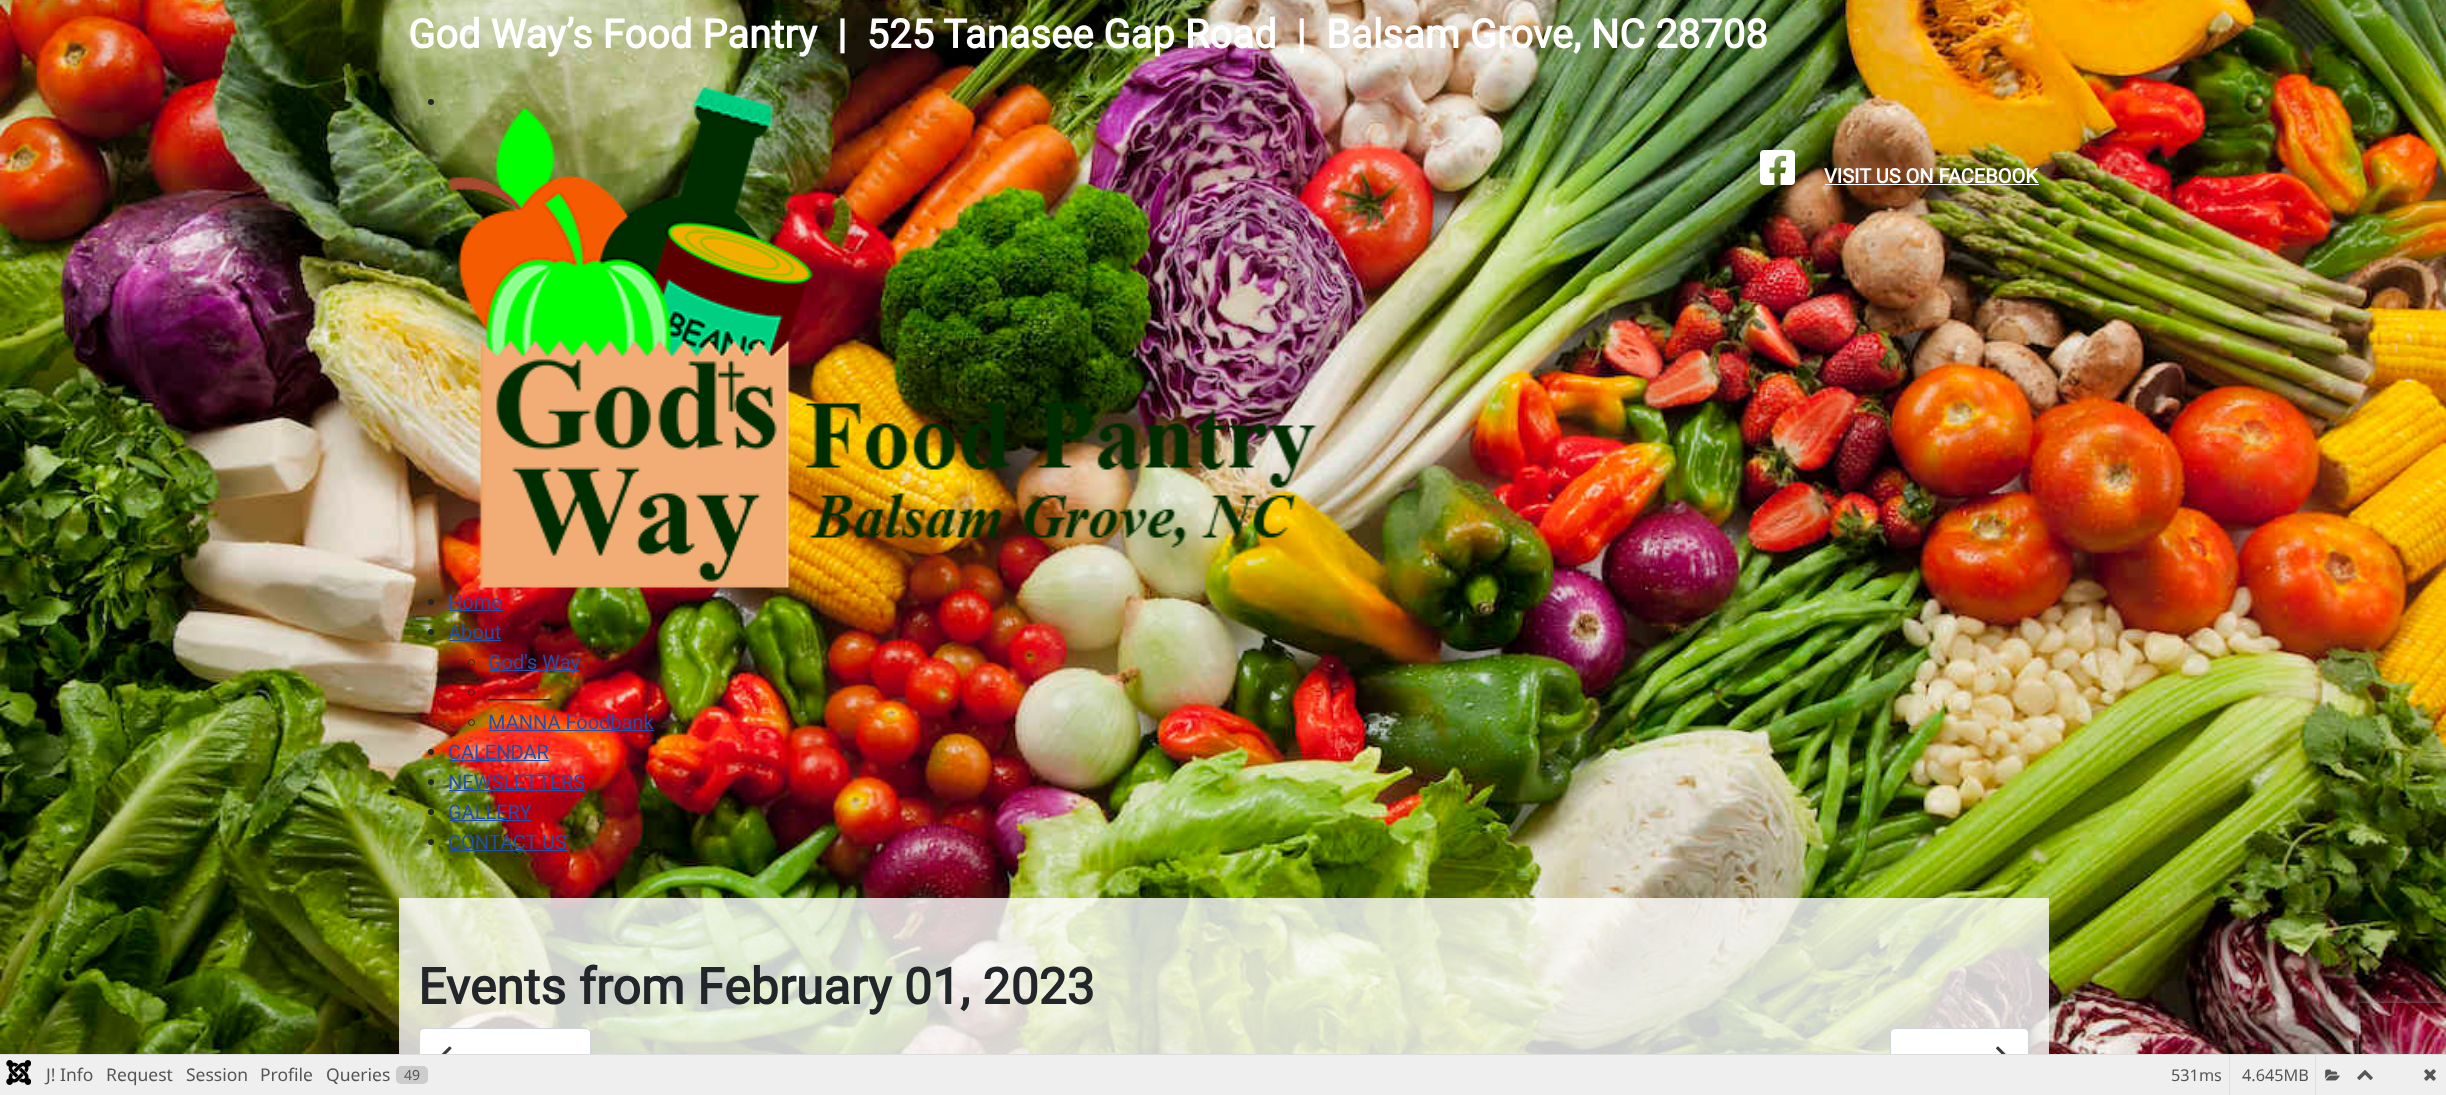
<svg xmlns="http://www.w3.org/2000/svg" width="2446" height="1095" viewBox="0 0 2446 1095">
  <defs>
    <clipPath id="clip1"><path d="M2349 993H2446V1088H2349ZM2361.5 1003H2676.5C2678 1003 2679 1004 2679 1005.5V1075.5C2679 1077 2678 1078 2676.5 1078H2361.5C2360 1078 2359 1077 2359 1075.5V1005.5C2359 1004 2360 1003 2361.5 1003Z" clip-rule="evenodd"/></clipPath>
  </defs>
  <rect width="100%" height="100%" fill="rgb(255,255,255)"/>
  <image x="0" y="0" width="2446" height="1054" href="pic1.png"/>
  <text x="408" y="48" font-family="Roboto" font-size="40" font-weight="bold" fill="rgb(255,255,255)" xml:space="preserve">God Way’s Food Pantry  |  525 Tanasee Gap Road  |  Balsam Grove, NC 28708</text>
  <image x="1760" y="150" width="35" height="35" href="pic2.png"/>
  <text x="1824" y="183" font-family="Roboto" font-size="20" font-weight="bold" fill="rgb(255,255,255)">VISIT US ON FACEBOOK</text>
  <rect x="1825" y="184" width="214" height="1" fill="rgb(255,255,255)"/>
  <circle cx="431" cy="102" r="3" fill="rgb(34,38,42)"/>
  <image x="448" y="87" width="869" height="501" href="pic3.png"/>
  <circle cx="431" cy="602" r="3" fill="rgb(34,38,42)"/>
  <text x="448" y="609" font-family="Roboto" font-size="20" fill="rgb(34,79,170)">Home</text>
  <rect x="449" y="610" width="54" height="1" fill="rgb(34,79,170)"/>
  <circle cx="431" cy="632" r="3" fill="rgb(34,38,42)"/>
  <text x="448" y="639" font-family="Roboto" font-size="20" fill="rgb(34,79,170)">About</text>
  <rect x="449" y="640" width="52" height="1" fill="rgb(34,79,170)"/>
  <circle cx="471.5" cy="662.5" r="3" fill="none" stroke="rgb(34,38,42)"/>
  <rect x="489" y="670" width="91" height="1" fill="rgb(34,79,170)"/>
  <text x="488" y="669" font-family="Roboto" font-size="20" fill="rgb(34,79,170)">God's Way</text>
  <circle cx="471.5" cy="692.5" r="3" fill="none" stroke="rgb(34,38,42)"/>
  <text x="488" y="699" font-family="Roboto" font-size="20" fill="rgb(34,38,42)">_______</text>
  <circle cx="471.5" cy="722.5" r="3" fill="none" stroke="rgb(34,38,42)"/>
  <text x="488" y="729" font-family="Roboto" font-size="20" fill="rgb(34,79,170)">MANNA Foodbank</text>
  <rect x="489" y="730" width="165" height="1" fill="rgb(34,79,170)"/>
  <circle cx="431" cy="752" r="3" fill="rgb(34,38,42)"/>
  <text x="448" y="759" font-family="Roboto" font-size="20" fill="rgb(34,79,170)">CALENDAR</text>
  <rect x="449" y="760" width="100" height="1" fill="rgb(34,79,170)"/>
  <circle cx="431" cy="782" r="3" fill="rgb(34,38,42)"/>
  <text x="448" y="789" font-family="Roboto" font-size="20" fill="rgb(34,79,170)">NEWSLETTERS</text>
  <rect x="449" y="790" width="136" height="1" fill="rgb(34,79,170)"/>
  <circle cx="431" cy="812" r="3" fill="rgb(34,38,42)"/>
  <text x="448" y="819" font-family="Roboto" font-size="20" fill="rgb(34,79,170)">GALLERY</text>
  <rect x="449" y="820" width="82" height="1" fill="rgb(34,79,170)"/>
  <circle cx="431" cy="842" r="3" fill="rgb(34,38,42)"/>
  <text x="448" y="849" font-family="Roboto" font-size="20" fill="rgb(34,79,170)">CONTACT US</text>
  <rect x="449" y="850" width="119" height="1" fill="rgb(34,79,170)"/>
  <rect x="399" y="898" width="1650" height="156" fill="rgba(255,255,255,0.8)"/>
  <text x="418" y="1004" font-family="Roboto" font-size="50" font-weight="bold" fill="rgb(34,38,42)">Events from February 01, 2023</text>
  <rect x="419.5" y="1028.5" width="171" height="55" rx="4.5" fill="rgb(255,255,255)" stroke="rgb(206,212,218)"/>
  <image x="441" y="1046" width="11" height="8" href="pic4.png"/>
  <rect x="1890.5" y="1028.5" width="138" height="55" rx="4.5" fill="rgb(255,255,255)" stroke="rgb(206,212,218)"/>
  <image x="1996" y="1046" width="10" height="8" href="pic5.png"/>
  <g clip-path="url(#clip1)">
    <rect x="2359" y="1003" width="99" height="75" rx="2.5" fill="rgb(128,128,128)" filter="blur(3px)"/>
  </g>
  <rect x="0" y="1054" width="2446" height="1" fill="rgb(221,221,221)"/>
  <rect x="0" y="1055" width="2446" height="40" fill="rgb(239,239,239)"/>
  <image x="6" y="1060" width="25" height="25" href="pic6.png"/>
  <g font-family="Noto Sans" font-size="17.5" fill="rgb(85,85,85)">
    <text x="46" y="1081">J! Info</text>
    <text x="106" y="1081">Request</text>
    <text x="186" y="1081">Session</text>
    <text x="260" y="1081">Profile</text>
    <text x="326" y="1081">Queries</text>
  </g>
  <rect x="396" y="1066" width="32" height="18" rx="5" fill="rgb(204,204,204)"/>
  <text x="404" y="1080" font-family="Noto Sans" font-size="14" fill="rgb(85,85,85)">49</text>
  <rect x="2229" y="1055" width="1" height="40" fill="rgb(221,221,221)"/>
  <text x="2171" y="1081" font-family="Noto Sans" font-size="16.25" fill="rgb(85,85,85)">531ms</text>
  <rect x="2315" y="1055" width="1" height="40" fill="rgb(221,221,221)"/>
  <text x="2242" y="1081" font-family="Noto Sans" font-size="16.25" fill="rgb(85,85,85)">4.645MB</text>
  <image x="2325" y="1069" width="15" height="12" href="pic7.png"/>
  <image x="2357" y="1070" width="16" height="10" href="pic8.png"/>
  <image x="2424" y="1069" width="12" height="12" href="pic9.png"/>
</svg>
